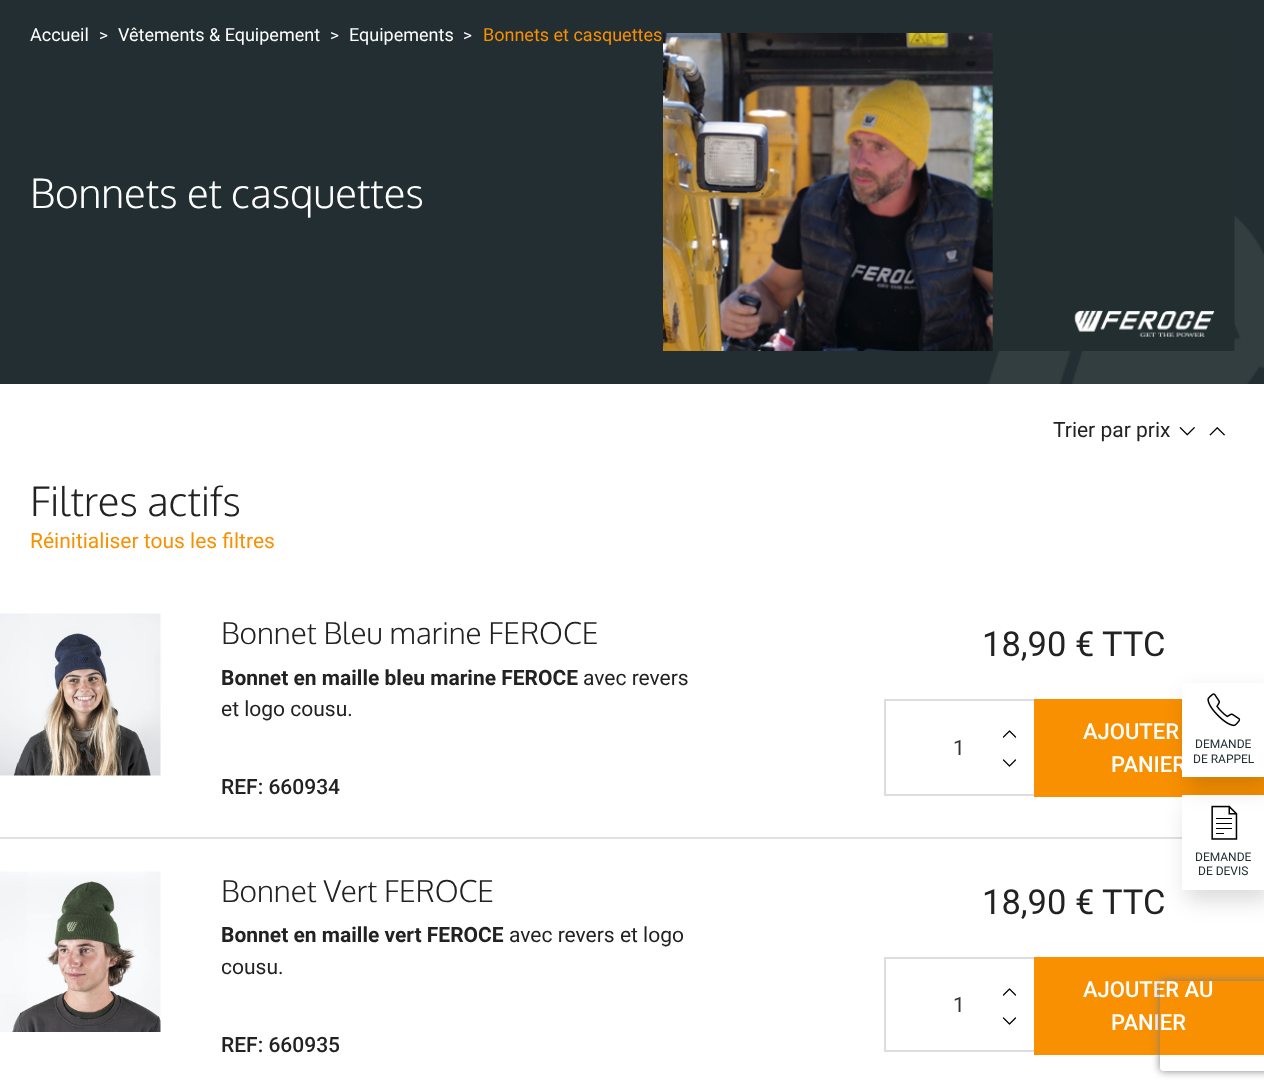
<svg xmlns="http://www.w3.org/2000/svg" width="1264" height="1092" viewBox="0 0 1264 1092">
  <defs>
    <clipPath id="clip1"><path d="M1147 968H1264V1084H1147ZM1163 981H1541C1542.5 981 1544 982.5 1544 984V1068C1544 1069.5 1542.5 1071 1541 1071H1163C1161.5 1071 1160 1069.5 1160 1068V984C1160 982.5 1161.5 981 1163 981Z" clip-rule="evenodd"/></clipPath>
  </defs>
  <rect width="100%" height="100%" fill="rgb(255,255,255)"/>
  <rect x="0" y="0" width="1264" height="384" fill="rgb(34,46,49)"/>
  <text x="30" y="41" font-family="Roboto" font-size="18" fill="rgb(255,255,255)">Accueil</text>
  <text x="99" y="41" font-family="Roboto" font-size="17" fill="rgb(255,255,255)">&gt;</text>
  <text x="118" y="41" font-family="Roboto" font-size="18" fill="rgb(255,255,255)">Vêtements &amp; Equipement</text>
  <text x="330" y="41" font-family="Roboto" font-size="17" fill="rgb(255,255,255)">&gt;</text>
  <text x="349" y="41" font-family="Roboto" font-size="18" fill="rgb(255,255,255)">Equipements</text>
  <text x="463" y="41" font-family="Roboto" font-size="17" fill="rgb(255,255,255)">&gt;</text>
  <text x="483" y="41" font-family="Roboto" font-size="18" fill="rgb(248,144,2)">Bonnets et casquettes</text>
  <image x="988" y="215" width="276" height="169" href="pic1.png"/>
  <text x="30" y="208" font-family="Oxygen" font-size="40.5" font-weight="300" fill="rgb(255,255,255)">Bonnets et casquettes</text>
  <image x="663" y="33" width="572" height="318" href="pic2.png"/>
  <text x="1053" y="437" font-family="Roboto" font-size="21" fill="rgb(34,34,34)">Trier par prix</text>
  <image x="1179" y="427" width="16" height="9" href="pic3.png"/>
  <image x="1209" y="427" width="16" height="9" href="pic4.png"/>
  <text x="30" y="516" font-family="Oxygen" font-size="40.5" font-weight="300" fill="rgb(34,34,34)">Filtres actifs</text>
  <text x="30" y="548" font-family="Roboto" font-size="21" fill="rgb(248,144,2)">Réinitialiser tous les filtres</text>
  <rect x="0" y="837" width="1182" height="2" fill="rgb(224,224,224)"/>
  <image x="0" y="613" width="161" height="163" href="pic5.png"/>
  <text x="221" y="644" font-family="Oxygen" font-size="30" font-weight="300" fill="rgb(34,34,34)">Bonnet Bleu marine FEROCE</text>
  <text x="221" y="685" font-family="Roboto" font-size="21" font-weight="bold" fill="rgb(34,34,34)">Bonnet en maille bleu marine FEROCE</text>
  <g font-family="Roboto" font-size="21" fill="rgb(34,34,34)">
    <text x="583" y="685">avec revers</text>
    <text x="221" y="716">et logo cousu.</text>
  </g>
  <text x="221" y="794" font-family="Roboto" font-size="21" font-weight="500" fill="rgb(34,34,34)">REF: 660934</text>
  <g font-family="Roboto" font-size="34.5" fill="rgb(34,34,34)">
    <text x="982" y="656">18,90 €</text>
    <text x="1102" y="656">TTC</text>
  </g>
  <rect x="884" y="699" width="150" height="2" fill="rgb(221,221,221)"/>
  <rect x="884" y="794" width="150" height="2" fill="rgb(221,221,221)"/>
  <rect x="884" y="699" width="2" height="96" fill="rgb(221,221,221)"/>
  <text x="953" y="755" font-family="Roboto" font-size="21" fill="rgb(51,51,51)">1</text>
  <path d="M1003.5 737L1009.5 731L1015.5 737M1015.5 760L1009.5 766L1003.5 760" fill="none" stroke="rgb(0,0,0)" stroke-width="1.2" stroke-linecap="round" stroke-linejoin="round"/>
  <rect x="1034" y="699" width="230" height="98" fill="rgb(248,144,2)"/>
  <g font-family="Roboto" font-size="22" font-weight="500" fill="rgb(255,255,255)">
    <text x="1083" y="739">AJOUTER</text>
    <text x="1111" y="772">PANIER</text>
  </g>
  <image x="0" y="871" width="161" height="161" href="pic6.png"/>
  <text x="221" y="902" font-family="Oxygen" font-size="30" font-weight="300" fill="rgb(34,34,34)">Bonnet Vert FEROCE</text>
  <text x="221" y="942" font-family="Roboto" font-size="21" font-weight="bold" fill="rgb(34,34,34)">Bonnet en maille vert FEROCE</text>
  <g font-family="Roboto" font-size="21" fill="rgb(34,34,34)">
    <text x="509" y="942">avec revers et logo</text>
    <text x="221" y="974">cousu.</text>
  </g>
  <text x="221" y="1052" font-family="Roboto" font-size="21" font-weight="500" fill="rgb(34,34,34)">REF: 660935</text>
  <g font-family="Roboto" font-size="34.5" fill="rgb(34,34,34)">
    <text x="982" y="914">18,90 €</text>
    <text x="1102" y="914">TTC</text>
  </g>
  <rect x="884" y="957" width="150" height="2" fill="rgb(221,221,221)"/>
  <rect x="884" y="1050" width="150" height="2" fill="rgb(221,221,221)"/>
  <rect x="884" y="957" width="2" height="95" fill="rgb(221,221,221)"/>
  <text x="953" y="1012" font-family="Roboto" font-size="21" fill="rgb(51,51,51)">1</text>
  <path d="M1003.5 995L1009.5 989L1015.5 995M1015.5 1018L1009.5 1024L1003.5 1018" fill="none" stroke="rgb(0,0,0)" stroke-width="1.2" stroke-linecap="round" stroke-linejoin="round"/>
  <rect x="1034" y="957" width="230" height="98" fill="rgb(248,144,2)"/>
  <g font-family="Roboto" font-size="22" font-weight="500" fill="rgb(255,255,255)">
    <text x="1083" y="997">AJOUTER AU</text>
    <text x="1111" y="1030">PANIER</text>
  </g>
  <rect x="1187" y="806" width="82" height="94" fill="rgba(0,0,0,0.15)" filter="blur(11px)"/>
  <rect x="1182" y="795" width="82" height="95" fill="rgb(255,255,255)"/>
  <image x="1211" y="805" width="27" height="35" href="pic8.png"/>
  <rect x="1187" y="693" width="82" height="95" fill="rgba(0,0,0,0.15)" filter="blur(11px)"/>
  <rect x="1182" y="683" width="82" height="94" fill="rgb(255,255,255)"/>
  <image x="1207" y="693" width="34" height="34" href="pic7.png"/>
  <g font-family="Roboto" font-size="12" fill="rgb(34,46,49)">
    <text x="1195" y="748">DEMANDE</text>
    <text x="1193" y="763">DE RAPPEL</text>
    <text x="1195" y="861">DEMANDE</text>
    <text x="1198" y="875">DE DEVIS</text>
  </g>
  <g clip-path="url(#clip1)">
    <rect x="1160" y="981" width="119" height="90" rx="3" fill="rgb(128,128,128)" filter="blur(4px)"/>
  </g>
</svg>
